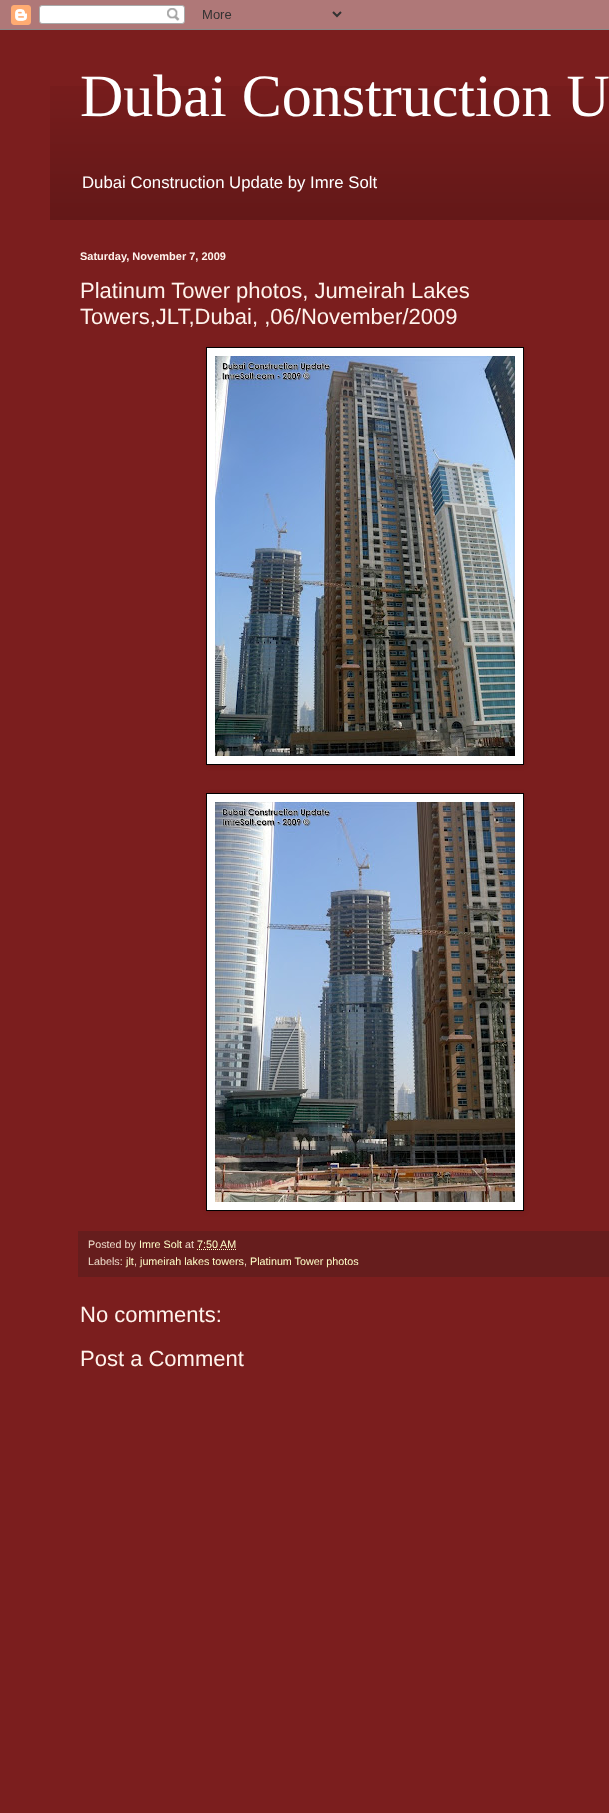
<svg xmlns="http://www.w3.org/2000/svg" width="609" height="1813" viewBox="0 0 609 1813">
  <rect width="100%" height="100%" fill="rgb(123,30,30)"/>
  <image x="0" y="0" width="609" height="30" href="pic1.png"/>
  <image x="50" y="86" width="559" height="134" href="pic2.png"/>
  <text x="80" y="116" font-family="Liberation Serif" font-size="60" fill="rgb(255,255,255)">Dubai Construction U</text>
  <text x="82" y="188" font-family="Liberation Sans" font-size="16.75" fill="rgb(255,255,255)">Dubai Construction Update by Imre Solt</text>
  <text x="80" y="260" font-family="Liberation Sans" font-size="11" font-weight="bold" fill="rgb(255,243,236)">Saturday, November 7, 2009</text>
  <g font-family="Liberation Sans" font-size="22" fill="rgb(255,243,236)">
    <text>
      <tspan x="80" y="298">Platinum Tower photos, Jumeirah Lakes</tspan>
      <tspan x="80" y="324">Towers,JLT,Dubai, ,06/November/2009</tspan>
    </text>
  </g>
  <rect x="207" y="348" width="318" height="418" fill="rgba(0,0,0,0.1)" filter="blur(2.5px)"/>
  <rect x="206.5" y="347.5" width="317" height="417" fill="rgb(255,255,255)" stroke="rgb(0,0,0)"/>
  <image x="215" y="356" width="300" height="400" href="pic3.png"/>
  <rect x="207" y="794" width="318" height="418" fill="rgba(0,0,0,0.1)" filter="blur(2.5px)"/>
  <rect x="206.5" y="793.5" width="317" height="417" fill="rgb(255,255,255)" stroke="rgb(0,0,0)"/>
  <image x="215" y="802" width="300" height="400" href="pic4.png"/>
  <rect x="78" y="1231" width="531" height="46" fill="rgb(102,29,29)"/>
  <text x="88" y="1248" font-family="Liberation Sans" font-size="10.75" fill="rgb(237,219,202)">Posted by</text>
  <text x="139" y="1248" font-family="Liberation Sans" font-size="10.75" fill="rgb(255,255,201)">Imre Solt</text>
  <text x="185" y="1248" font-family="Liberation Sans" font-size="10.75" fill="rgb(237,219,202)">at</text>
  <text x="197" y="1248" font-family="Liberation Sans" font-size="10.75" fill="rgb(255,255,201)">7:50 AM</text>
  <path d="M197 1249.5H236.5" fill="none" stroke="rgb(255,255,201)" stroke-dasharray="1 1"/>
  <text x="88" y="1265" font-family="Liberation Sans" font-size="10.75" fill="rgb(237,219,202)">Labels:</text>
  <text x="126" y="1265" font-family="Liberation Sans" font-size="10.75" fill="rgb(255,255,201)">jlt</text>
  <text x="134" y="1265" font-family="Liberation Sans" font-size="10.75" fill="rgb(237,219,202)">,</text>
  <text x="140" y="1265" font-family="Liberation Sans" font-size="10.75" fill="rgb(255,255,201)">jumeirah lakes towers</text>
  <text x="244" y="1265" font-family="Liberation Sans" font-size="10.75" fill="rgb(237,219,202)">,</text>
  <text x="250" y="1265" font-family="Liberation Sans" font-size="10.75" fill="rgb(255,255,201)">Platinum Tower photos</text>
  <g font-family="Liberation Sans" font-size="22" fill="rgb(255,243,236)">
    <text x="80" y="1322">No comments:</text>
    <text x="80" y="1366">Post a Comment</text>
  </g>
</svg>
